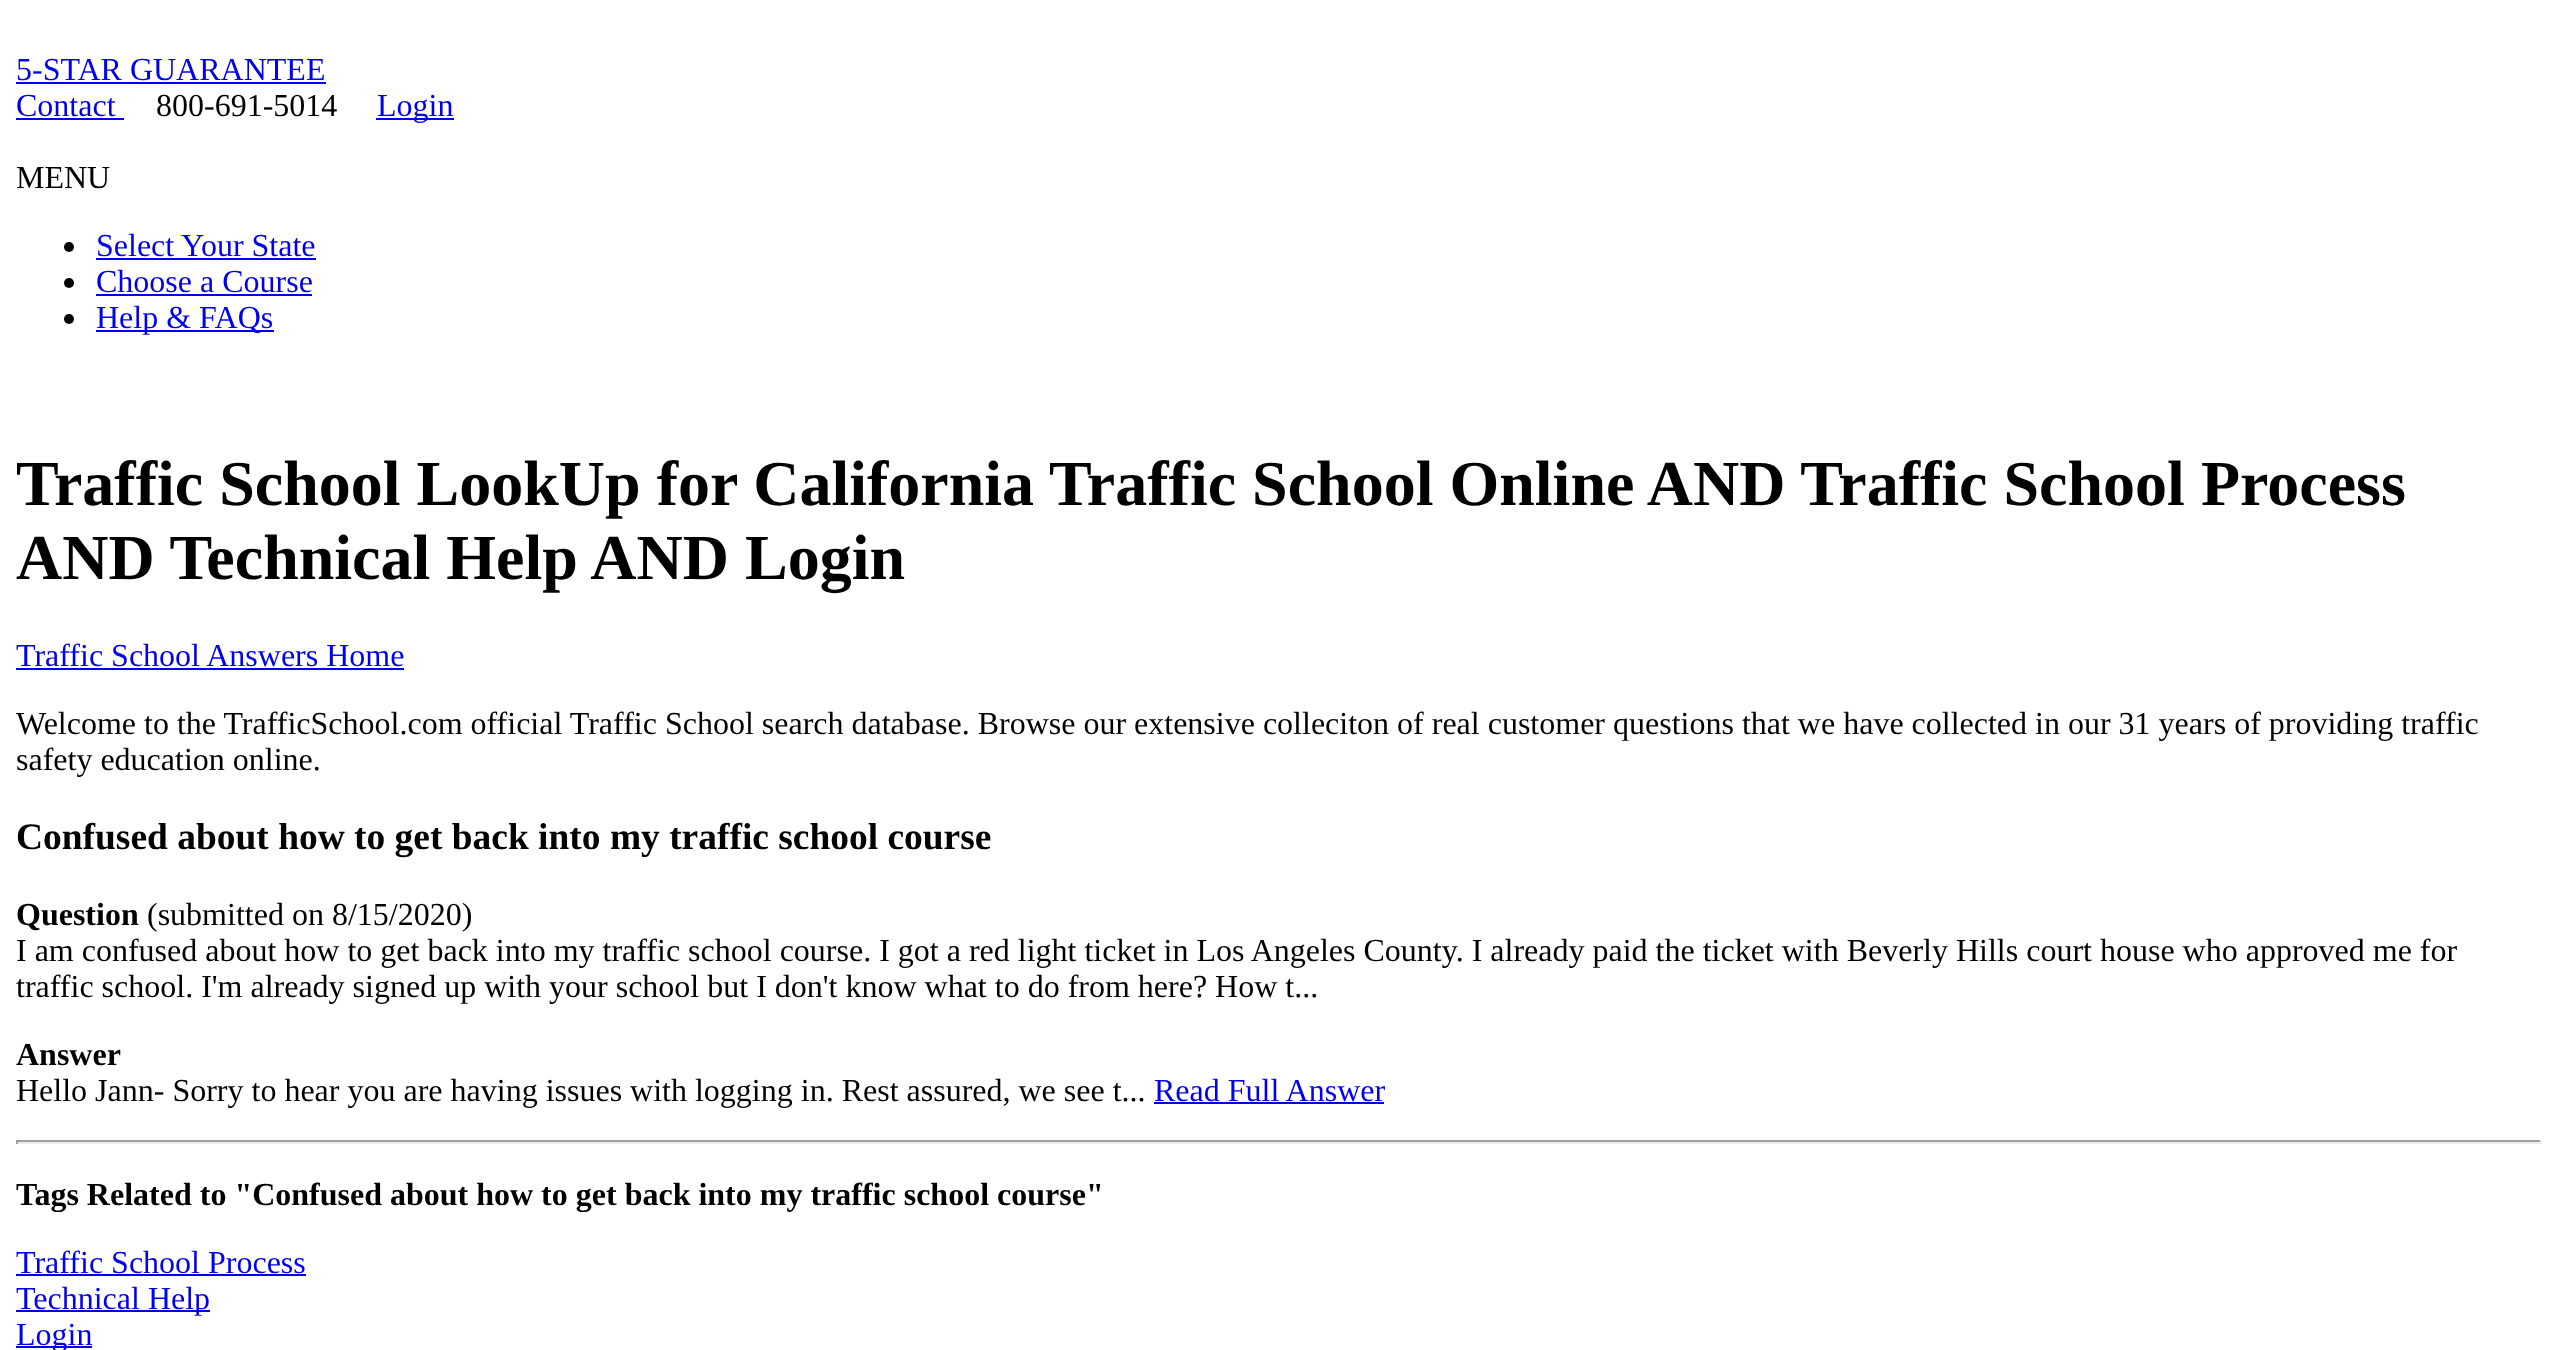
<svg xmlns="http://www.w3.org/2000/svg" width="2558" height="1350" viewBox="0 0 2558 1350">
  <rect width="100%" height="100%" fill="rgb(255,255,255)"/>
  <text x="16" y="80" font-family="Liberation Serif" font-size="32" fill="rgb(0,0,238)">5-STAR GUARANTEE</text>
  <rect x="16" y="82" width="310" height="2" fill="rgb(0,0,238)"/>
  <text x="16" y="116" font-family="Liberation Serif" font-size="32" fill="rgb(0,0,238)">Contact</text>
  <rect x="16" y="118" width="108" height="2" fill="rgb(0,0,238)"/>
  <text x="156" y="116" font-family="Liberation Serif" font-size="32" fill="rgb(0,0,0)">800-691-5014</text>
  <rect x="376" y="118" width="78" height="2" fill="rgb(0,0,238)"/>
  <text x="377" y="116" font-family="Liberation Serif" font-size="32" fill="rgb(0,0,238)">Login</text>
  <text x="16" y="188" font-family="Liberation Serif" font-size="32" fill="rgb(0,0,0)">MENU</text>
  <circle cx="69" cy="247" r="5" fill="rgb(0,0,0)"/>
  <text x="96" y="256" font-family="Liberation Serif" font-size="32" fill="rgb(0,0,238)">Select Your State</text>
  <rect x="96" y="258" width="220" height="2" fill="rgb(0,0,238)"/>
  <circle cx="69" cy="283" r="5" fill="rgb(0,0,0)"/>
  <text x="96" y="292" font-family="Liberation Serif" font-size="32" fill="rgb(0,0,238)">Choose a Course</text>
  <rect x="96" y="294" width="216" height="2" fill="rgb(0,0,238)"/>
  <circle cx="69" cy="319" r="5" fill="rgb(0,0,0)"/>
  <rect x="96" y="330" width="178" height="2" fill="rgb(0,0,238)"/>
  <text x="96" y="328" font-family="Liberation Serif" font-size="32" fill="rgb(0,0,238)">Help &amp; FAQs</text>
  <g font-family="Liberation Serif" font-size="64" font-weight="bold" fill="rgb(0,0,0)">
    <text>
      <tspan x="16" y="505">Traffic School LookUp for California Traffic School Online AND Traffic School Process</tspan>
      <tspan x="16" y="579">AND Technical Help AND Login</tspan>
    </text>
  </g>
  <text x="16" y="666" font-family="Liberation Serif" font-size="32" fill="rgb(0,0,238)">Traffic School Answers Home</text>
  <rect x="16" y="668" width="388" height="2" fill="rgb(0,0,238)"/>
  <g font-family="Liberation Serif" font-size="32" fill="rgb(0,0,0)">
    <text>
      <tspan x="16" y="734">Welcome to the TrafficSchool.com official Traffic School search database. Browse our extensive colleciton of real customer questions that we have collected in our 31 years of providing traffic</tspan>
      <tspan x="16" y="770">safety education online.</tspan>
    </text>
  </g>
  <text x="16" y="849" font-family="Liberation Serif" font-size="37.45" font-weight="bold" fill="rgb(0,0,0)">Confused about how to get back into my traffic school course</text>
  <text x="16" y="925" font-family="Liberation Serif" font-size="32" font-weight="bold" fill="rgb(0,0,0)">Question</text>
  <g font-family="Liberation Serif" font-size="32" fill="rgb(0,0,0)">
    <text x="147" y="925">(submitted on 8/15/2020)</text>
    <text>
      <tspan x="16" y="961">I am confused about how to get back into my traffic school course. I got a red light ticket in Los Angeles County. I already paid the ticket with Beverly Hills court house who approved me for</tspan>
      <tspan x="16" y="997">traffic school. I'm already signed up with your school but I don't know what to do from here? How t...</tspan>
    </text>
  </g>
  <text x="16" y="1065" font-family="Liberation Serif" font-size="32" font-weight="bold" fill="rgb(0,0,0)">Answer</text>
  <text x="16" y="1101" font-family="Liberation Serif" font-size="32" fill="rgb(0,0,0)">Hello Jann- Sorry to hear you are having issues with logging in. Rest assured, we see t...</text>
  <text x="1154" y="1101" font-family="Liberation Serif" font-size="32" fill="rgb(0,0,238)">Read Full Answer</text>
  <rect x="1154" y="1102" width="230" height="2" fill="rgb(0,0,238)"/>
  <rect x="16" y="1140" width="2526" height="2" fill="rgb(159,159,159)"/>
  <rect x="2540" y="1140" width="2" height="4" fill="rgb(238,238,238)"/>
  <rect x="16" y="1142" width="2526" height="2" fill="rgb(238,238,238)"/>
  <rect x="16" y="1140" width="2" height="4" fill="rgb(159,159,159)"/>
  <text x="16" y="1205" font-family="Liberation Serif" font-size="32" font-weight="bold" fill="rgb(0,0,0)">Tags Related to "Confused about how to get back into my traffic school course"</text>
  <text x="16" y="1273" font-family="Liberation Serif" font-size="32" fill="rgb(0,0,238)">Traffic School Process</text>
  <rect x="16" y="1274" width="290" height="2" fill="rgb(0,0,238)"/>
  <rect x="16" y="1310" width="194" height="2" fill="rgb(0,0,238)"/>
  <text x="16" y="1309" font-family="Liberation Serif" font-size="32" fill="rgb(0,0,238)">Technical Help</text>
  <rect x="16" y="1346" width="76" height="2" fill="rgb(0,0,238)"/>
  <text x="16" y="1345" font-family="Liberation Serif" font-size="32" fill="rgb(0,0,238)">Login</text>
</svg>
